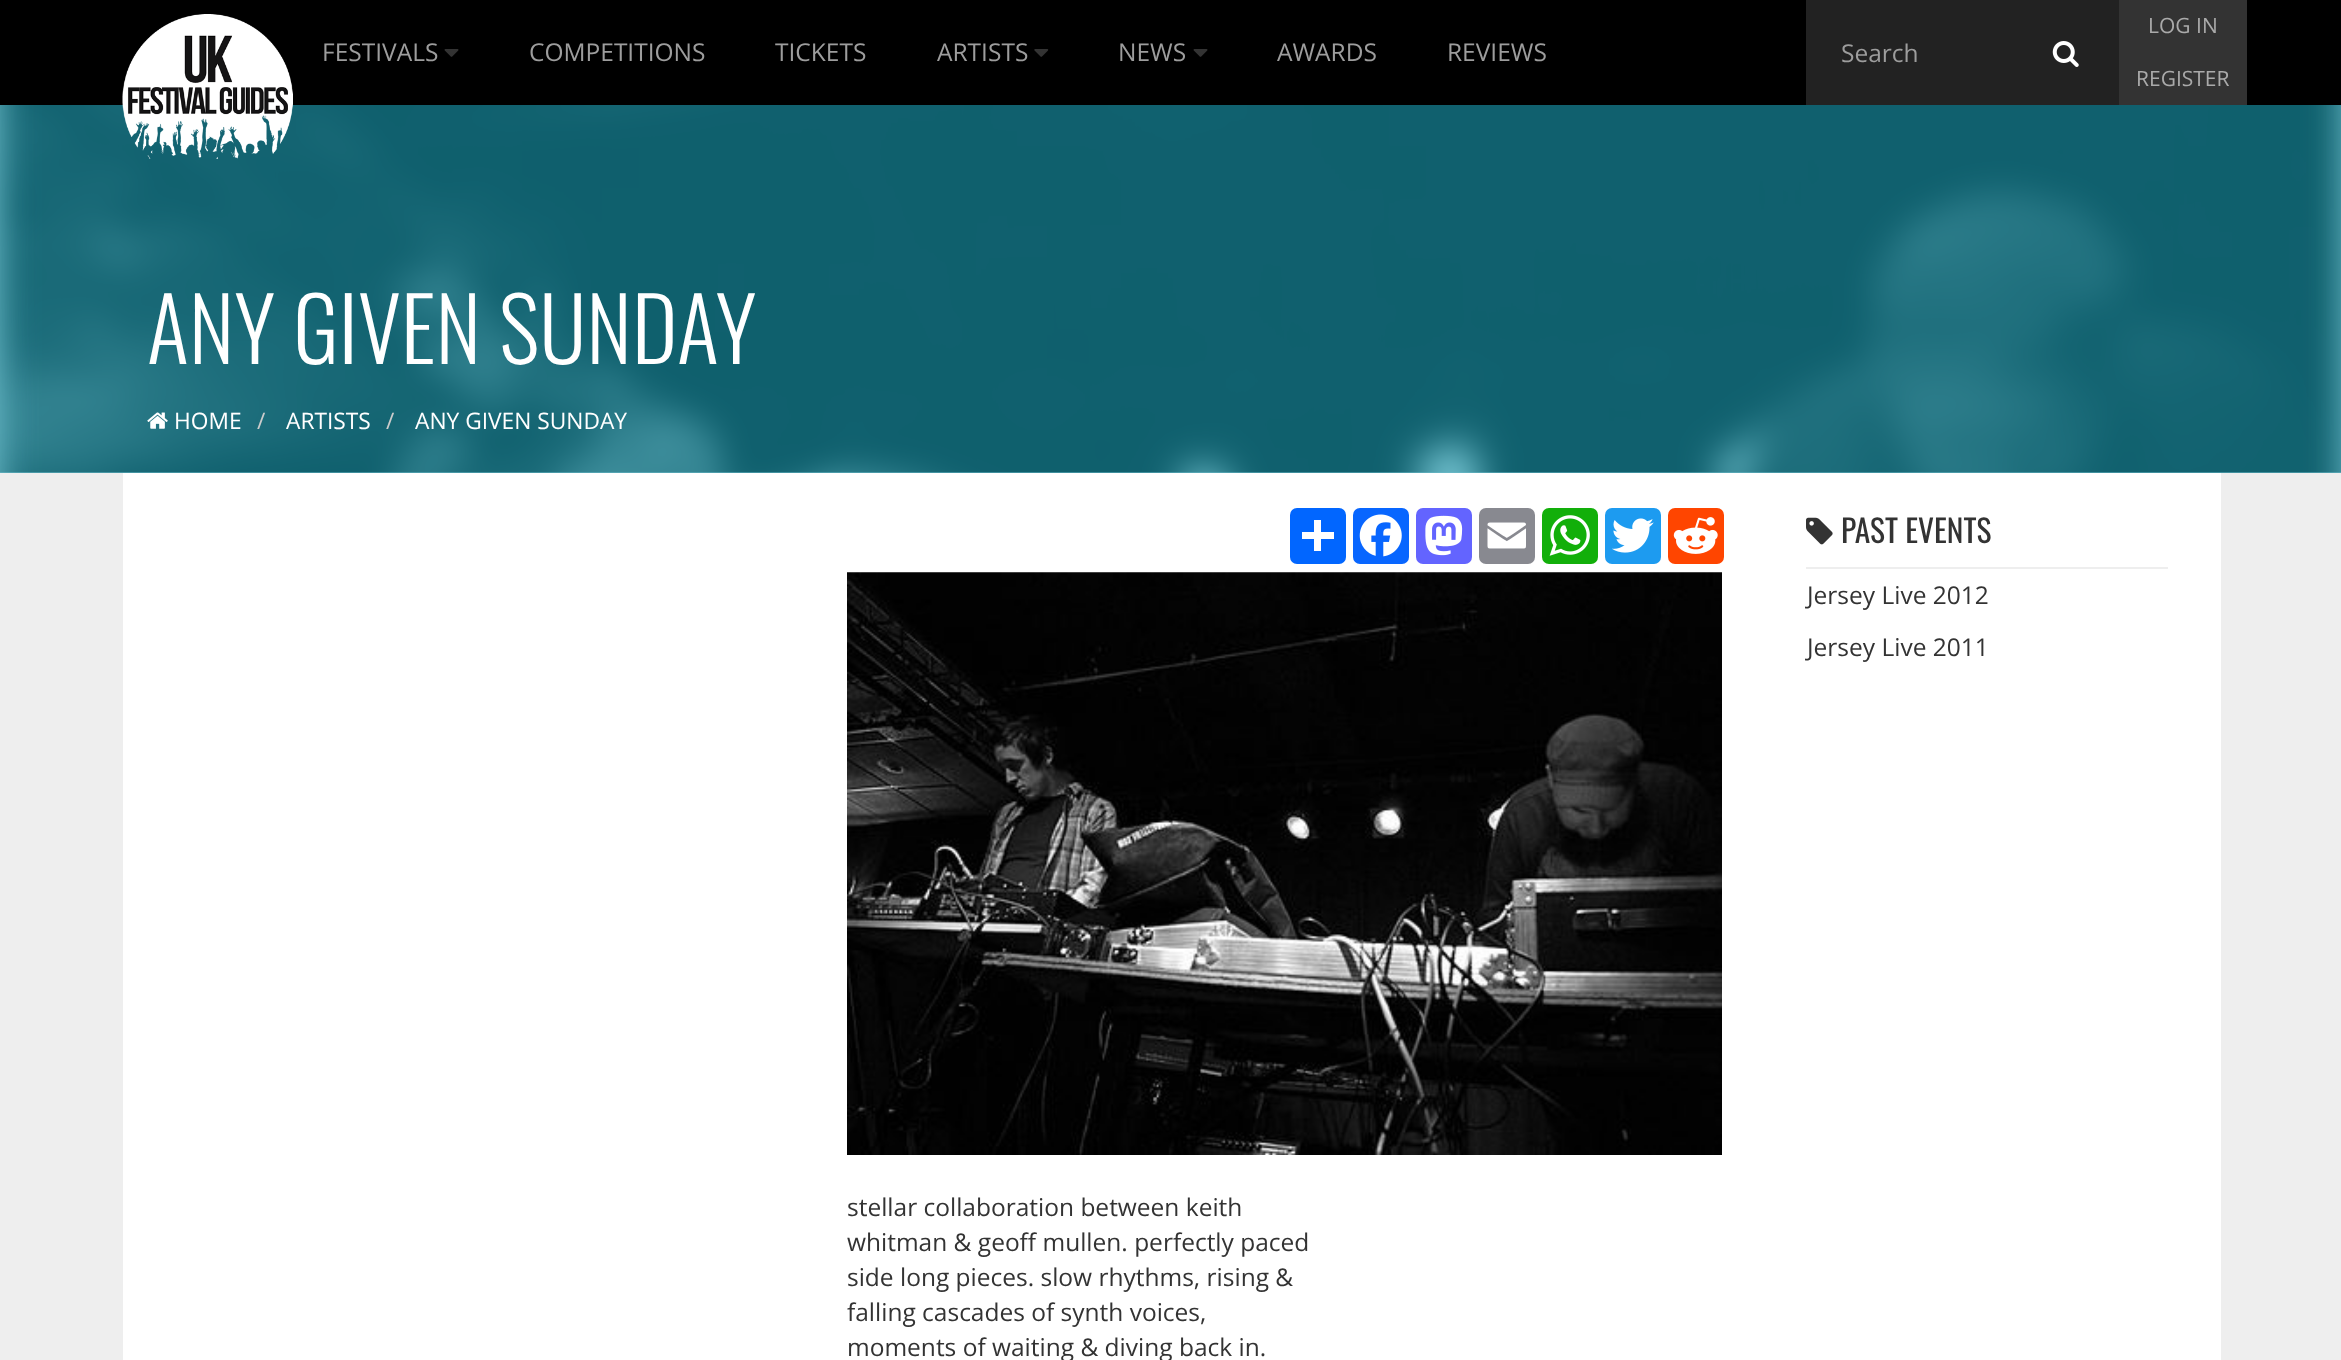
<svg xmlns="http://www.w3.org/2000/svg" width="2341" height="1360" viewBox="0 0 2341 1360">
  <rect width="100%" height="100%" fill="rgb(238,238,238)"/>
  <rect x="0" y="105" width="2341" height="368" fill="rgb(110,190,204)"/>
  <rect x="0" y="0" width="2341" height="105" fill="rgb(0,0,0)"/>
  <image x="0" y="105" width="2341" height="368" href="pic5.png"/>
  <image x="122" y="14" width="171" height="145" href="pic1.png"/>
  <text x="322" y="61" font-family="Open Sans" font-size="24.5" fill="rgb(157,157,157)">FESTIVALS</text>
  <image x="444" y="49" width="15" height="8" href="pic2.png"/>
  <g font-family="Open Sans" font-size="24.5" fill="rgb(157,157,157)">
    <text x="529" y="61">COMPETITIONS</text>
    <text x="775" y="61">TICKETS</text>
    <text x="937" y="61">ARTISTS</text>
  </g>
  <image x="1034" y="49" width="15" height="8" href="pic3.png"/>
  <text x="1118" y="61" font-family="Open Sans" font-size="24.5" fill="rgb(157,157,157)">NEWS</text>
  <image x="1193" y="49" width="15" height="8" href="pic2.png"/>
  <g font-family="Open Sans" font-size="24.5" fill="rgb(157,157,157)">
    <text x="1277" y="61">AWARDS</text>
    <text x="1447" y="61">REVIEWS</text>
  </g>
  <rect x="1806" y="0" width="313" height="105" fill="rgb(34,34,34)"/>
  <image x="2052" y="41" width="27" height="26" href="pic4.png"/>
  <text x="1841" y="62" font-family="Open Sans" font-size="24.5" fill="rgb(157,157,157)">Search</text>
  <rect x="2119" y="0" width="128" height="105" fill="rgb(51,51,51)"/>
  <g font-family="Open Sans" font-size="21" fill="rgb(170,170,170)">
    <text x="2148" y="33">LOG IN</text>
    <text x="2136" y="86">REGISTER</text>
  </g>
  <text x="147" y="364" font-family="Oswald" font-size="87.5" font-weight="300" fill="rgb(255,255,255)">ANY GIVEN SUNDAY</text>
  <image x="147" y="412" width="21" height="17" href="pic6.png"/>
  <text x="174" y="429" font-family="Open Sans" font-size="22.75" fill="rgb(255,255,255)">HOME</text>
  <text x="257" y="429" font-family="Open Sans" font-size="22.75" fill="rgb(204,204,204)">/</text>
  <text x="286" y="429" font-family="Open Sans" font-size="22.75" fill="rgb(255,255,255)">ARTISTS</text>
  <text x="386" y="429" font-family="Open Sans" font-size="22.75" fill="rgb(204,204,204)">/</text>
  <text x="415" y="429" font-family="Open Sans" font-size="22.75" fill="rgb(255,255,255)">ANY GIVEN SUNDAY</text>
  <rect x="123" y="473" width="2098" height="887" fill="rgb(255,255,255)"/>
  <image x="1806" y="517" width="27" height="28" href="pic7.png"/>
  <text x="1841" y="543" font-family="Oswald" font-size="31.5" fill="rgb(51,51,51)">PAST EVENTS</text>
  <rect x="1806" y="567" width="362" height="2" fill="rgb(238,238,238)"/>
  <g font-family="Open Sans" font-size="24.5" fill="rgb(51,51,51)">
    <text x="1807" y="604">Jersey Live 2012</text>
    <text x="1807" y="656">Jersey Live 2011</text>
  </g>
  <rect x="1290" y="508" width="56" height="56" rx="7" fill="rgb(1,102,255)"/>
  <rect x="1314" y="520" width="7" height="31" fill="rgb(255,255,255)"/>
  <rect x="1302" y="532" width="32" height="7" fill="rgb(255,255,255)"/>
  <rect x="1353" y="508" width="56" height="56" rx="7" fill="rgb(8,102,255)"/>
  <image x="1359" y="514" width="43" height="43" href="pic8.png"/>
  <rect x="1416" y="508" width="56" height="56" rx="7" fill="rgb(99,100,255)"/>
  <image x="1425" y="515" width="38" height="41" href="pic9.png"/>
  <rect x="1479" y="508" width="56" height="56" rx="7" fill="rgb(136,137,144)"/>
  <image x="1487" y="522" width="39" height="27" href="pic10.png"/>
  <rect x="1542" y="508" width="56" height="56" rx="7" fill="rgb(18,175,10)"/>
  <image x="1549" y="515" width="41" height="41" href="pic11.png"/>
  <rect x="1605" y="508" width="56" height="56" rx="7" fill="rgb(29,155,240)"/>
  <image x="1612" y="518" width="42" height="35" href="pic12.png"/>
  <rect x="1668" y="508" width="56" height="56" rx="7" fill="rgb(255,69,0)"/>
  <image x="1673" y="517" width="45" height="37" href="pic13.png"/>
  <image x="847" y="572" width="875" height="583" href="pic14.png"/>
  <g font-family="Open Sans" font-size="24.5" fill="rgb(51,51,51)">
    <text>
      <tspan x="847" y="1216">stellar collaboration between keith</tspan>
      <tspan x="847" y="1251">whitman &amp; geoff mullen. perfectly paced</tspan>
      <tspan x="847" y="1286">side long pieces. slow rhythms, rising &amp;</tspan>
      <tspan x="847" y="1321">falling cascades of synth voices,</tspan>
      <tspan x="847" y="1356">moments of waiting &amp; diving back in.</tspan>
    </text>
  </g>
</svg>
